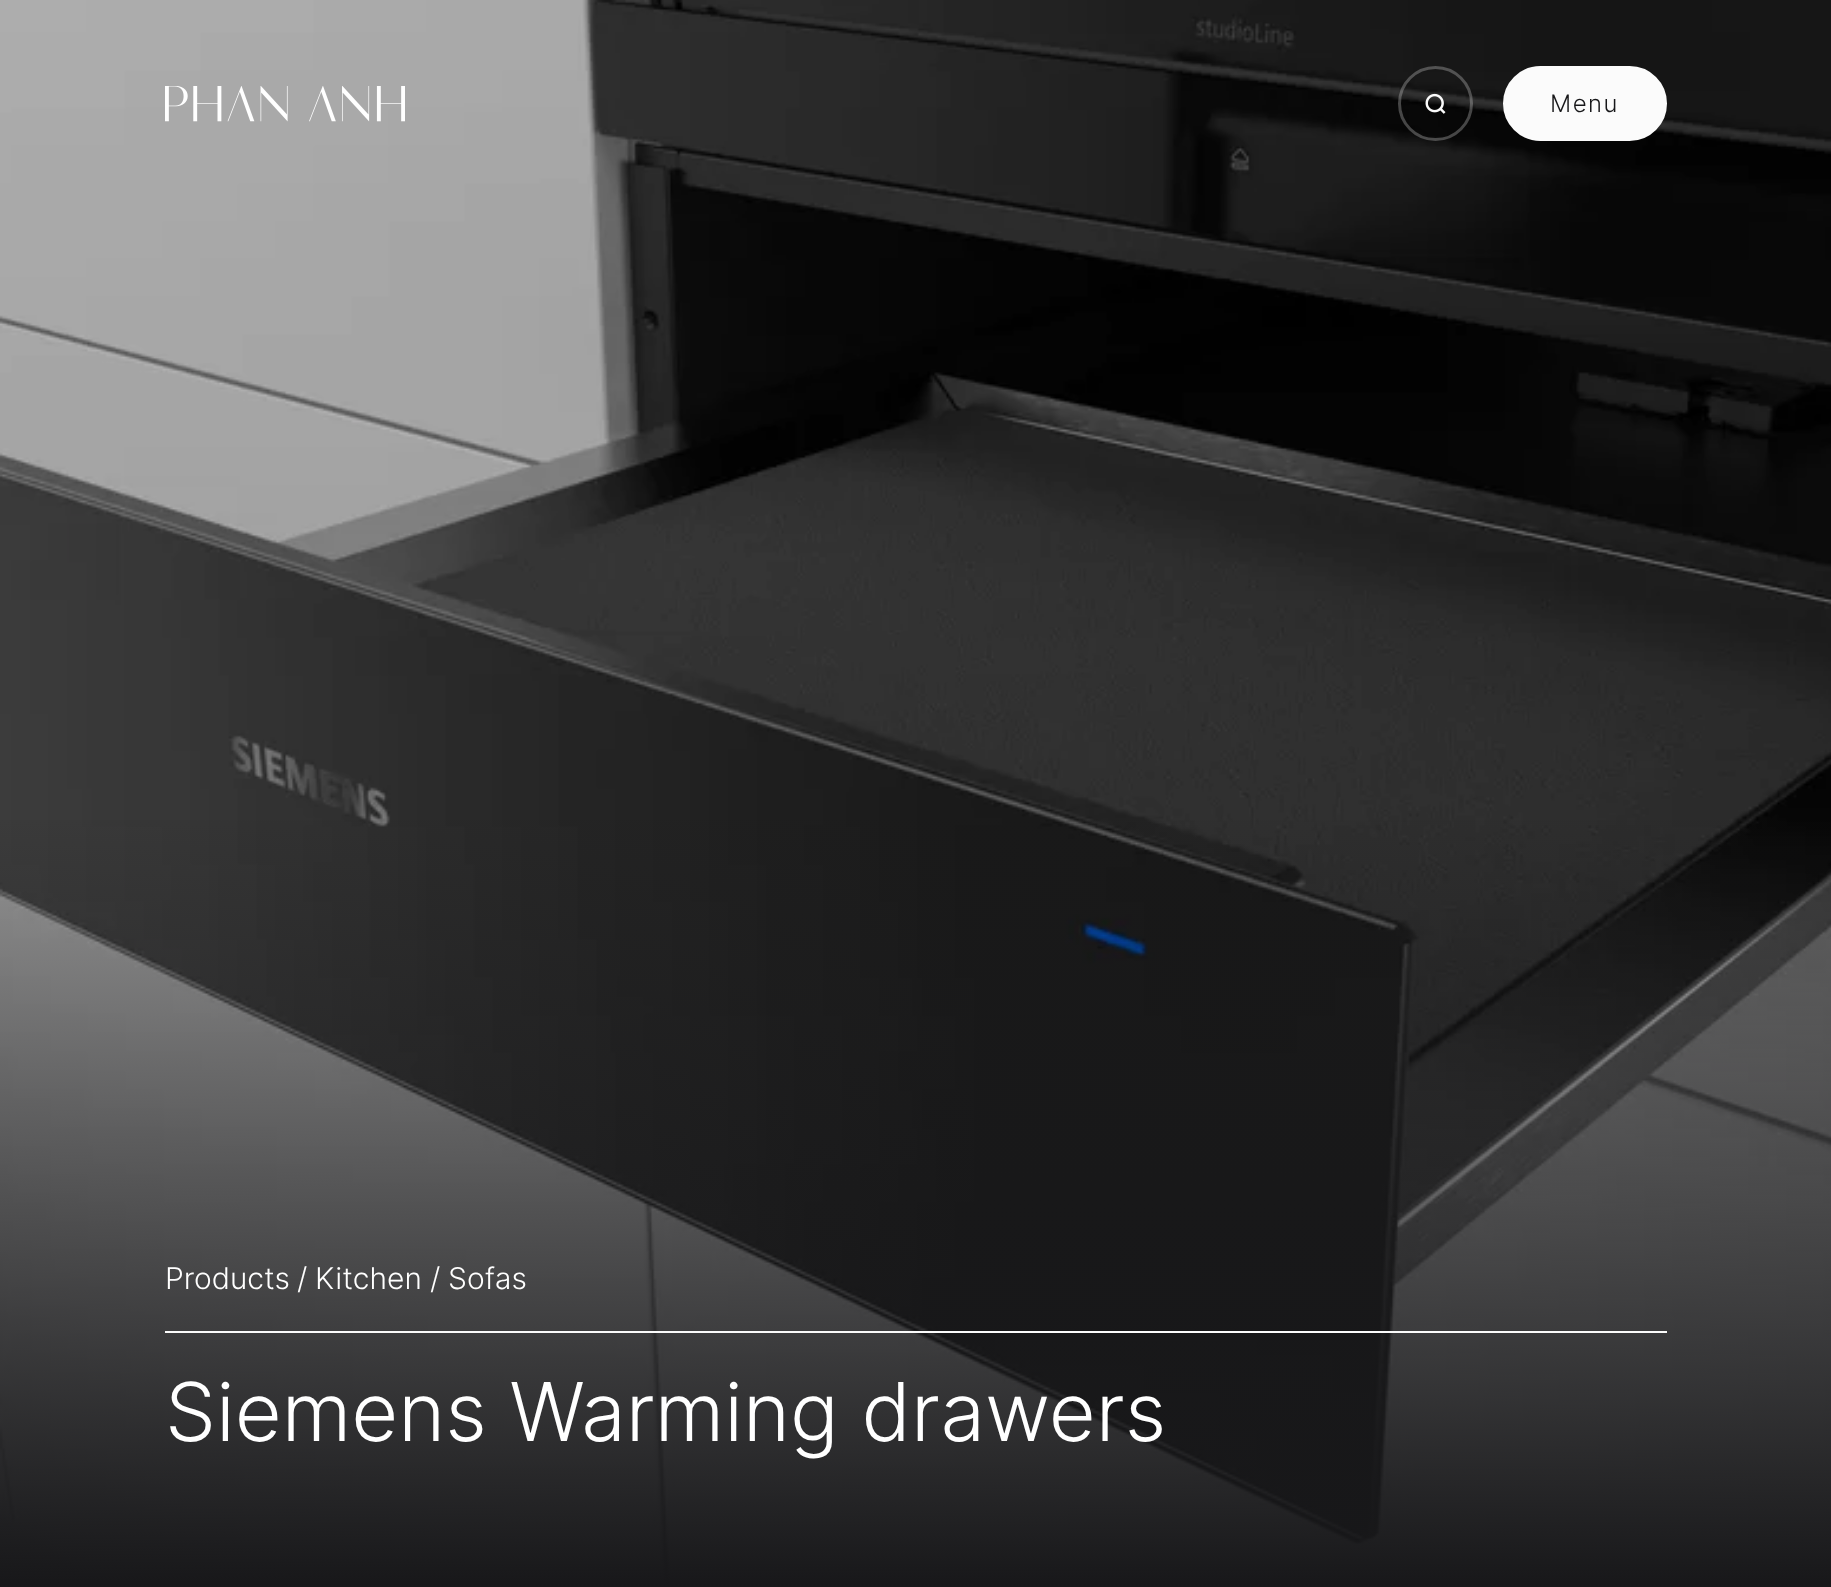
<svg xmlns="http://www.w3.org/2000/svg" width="1831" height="1587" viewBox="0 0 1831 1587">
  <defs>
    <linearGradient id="g1" gradientUnits="userSpaceOnUse" x1="916" y1="797" x2="916" y2="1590"><stop offset="0" stop-color="rgb(23,23,25)" stop-opacity="0"/><stop offset="1" stop-color="rgb(23,23,25)"/></linearGradient>
  </defs>
  <rect width="100%" height="100%" fill="rgb(255,255,255)"/>
  <image x="0" y="0" width="1831" height="1585" href="pic3.png"/>
  <image x="165" y="86" width="240" height="36" href="pic1.png"/>
  <circle cx="1435.5" cy="103.5" r="36" fill="none" stroke="rgba(218,218,218,0.3)" stroke-width="3"/>
  <image x="1425" y="93" width="21" height="21" href="pic2.png"/>
  <rect x="1504" y="67" width="162" height="73" rx="36.5" fill="rgb(251,251,251)" stroke="rgb(251,251,251)" stroke-width="2"/>
  <text x="1550" y="112" font-family="Inter" font-size="24" font-weight="300" letter-spacing="1.5" fill="rgb(23,23,25)">Menu</text>
  <rect x="0" y="820" width="1831" height="767" fill="url(#g1)"/>
  <rect x="165" y="1331" width="1502" height="2" fill="rgb(251,251,251)"/>
  <g font-family="Inter" font-size="30" font-weight="300" fill="rgb(255,255,255)">
    <text x="165" y="1289">Products</text>
    <text x="297" y="1289">/</text>
    <text x="315" y="1289">Kitchen</text>
    <text x="430" y="1289">/</text>
    <text x="448" y="1289">Sofas</text>
  </g>
  <text x="165" y="1441" font-family="Inter" font-size="81" font-weight="300" fill="rgb(255,255,255)">Siemens Warming drawers</text>
</svg>
